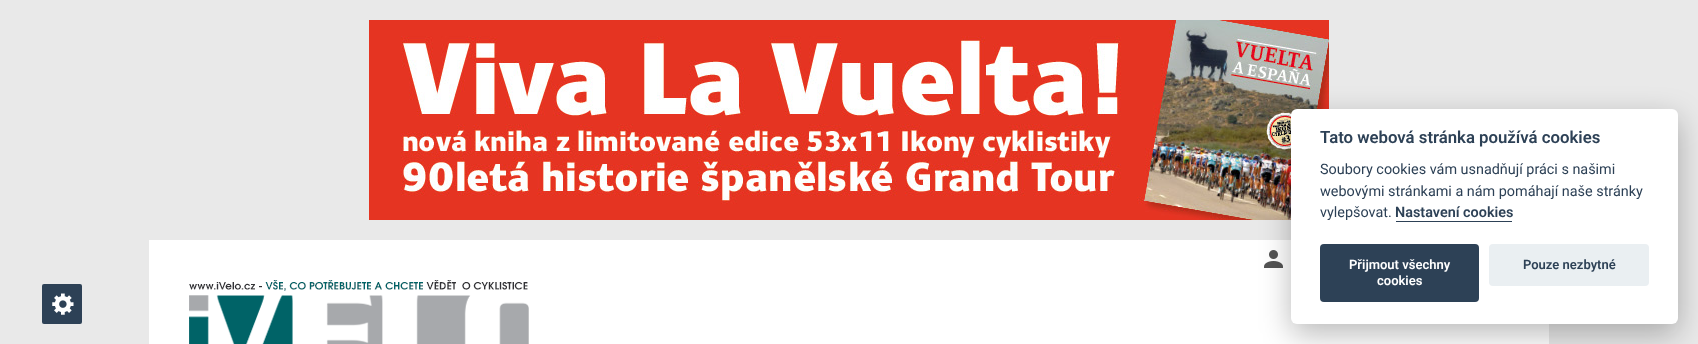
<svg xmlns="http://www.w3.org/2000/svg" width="1698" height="344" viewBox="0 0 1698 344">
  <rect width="100%" height="100%" fill="rgb(233,233,233)"/>
  <image x="369" y="20" width="960" height="200" href="pic1.png"/>
  <rect x="149" y="240" width="1142" height="40" fill="rgb(255,255,255)"/>
  <image x="1264" y="250" width="19" height="18" href="pic2.png"/>
  <rect x="149" y="280" width="1400" height="64" fill="rgb(255,255,255)"/>
  <image x="189" y="280" width="340" height="64" href="pic3.png"/>
  <rect x="1291" y="119" width="387" height="215" rx="6" fill="rgba(2,2,3,0.28)" filter="blur(15px)"/>
  <rect x="1291" y="109" width="387" height="215" rx="6" fill="rgb(255,255,255)"/>
  <text x="1320" y="143" font-family="Roboto" font-size="16.75" font-weight="600" fill="rgb(45,65,86)">Tato webová stránka používá cookies</text>
  <g font-family="Roboto" font-size="14.4" fill="rgb(45,65,86)">
    <text>
      <tspan x="1320" y="174">Soubory cookies vám usnadňují práci s našimi</tspan>
      <tspan x="1320" y="196">webovými stránkami a nám pomáhají naše stránky</tspan>
      <tspan x="1320" y="217">vylepšovat.</tspan>
    </text>
  </g>
  <text x="1395" y="217" font-family="Roboto" font-size="14.4" font-weight="600" fill="rgb(45,65,86)">Nastavení cookies</text>
  <rect x="1396" y="221" width="116" height="1" fill="rgb(45,65,86)"/>
  <rect x="1320" y="244" width="159" height="58" rx="4" fill="rgb(45,65,86)"/>
  <g font-family="Roboto" font-size="13" font-weight="600" fill="rgb(255,255,255)">
    <text x="1349" y="269">Přijmout všechny</text>
    <text x="1377" y="285">cookies</text>
  </g>
  <rect x="1489" y="244" width="160" height="42" rx="4" fill="rgb(234,239,242)"/>
  <text x="1523" y="269" font-family="Roboto" font-size="13" font-weight="600" fill="rgb(45,65,86)">Pouze nezbytné</text>
  <rect x="42" y="284" width="40" height="40" rx="2" fill="rgb(45,65,86)"/>
  <image x="52" y="293" width="22" height="22" href="pic4.png"/>
</svg>
